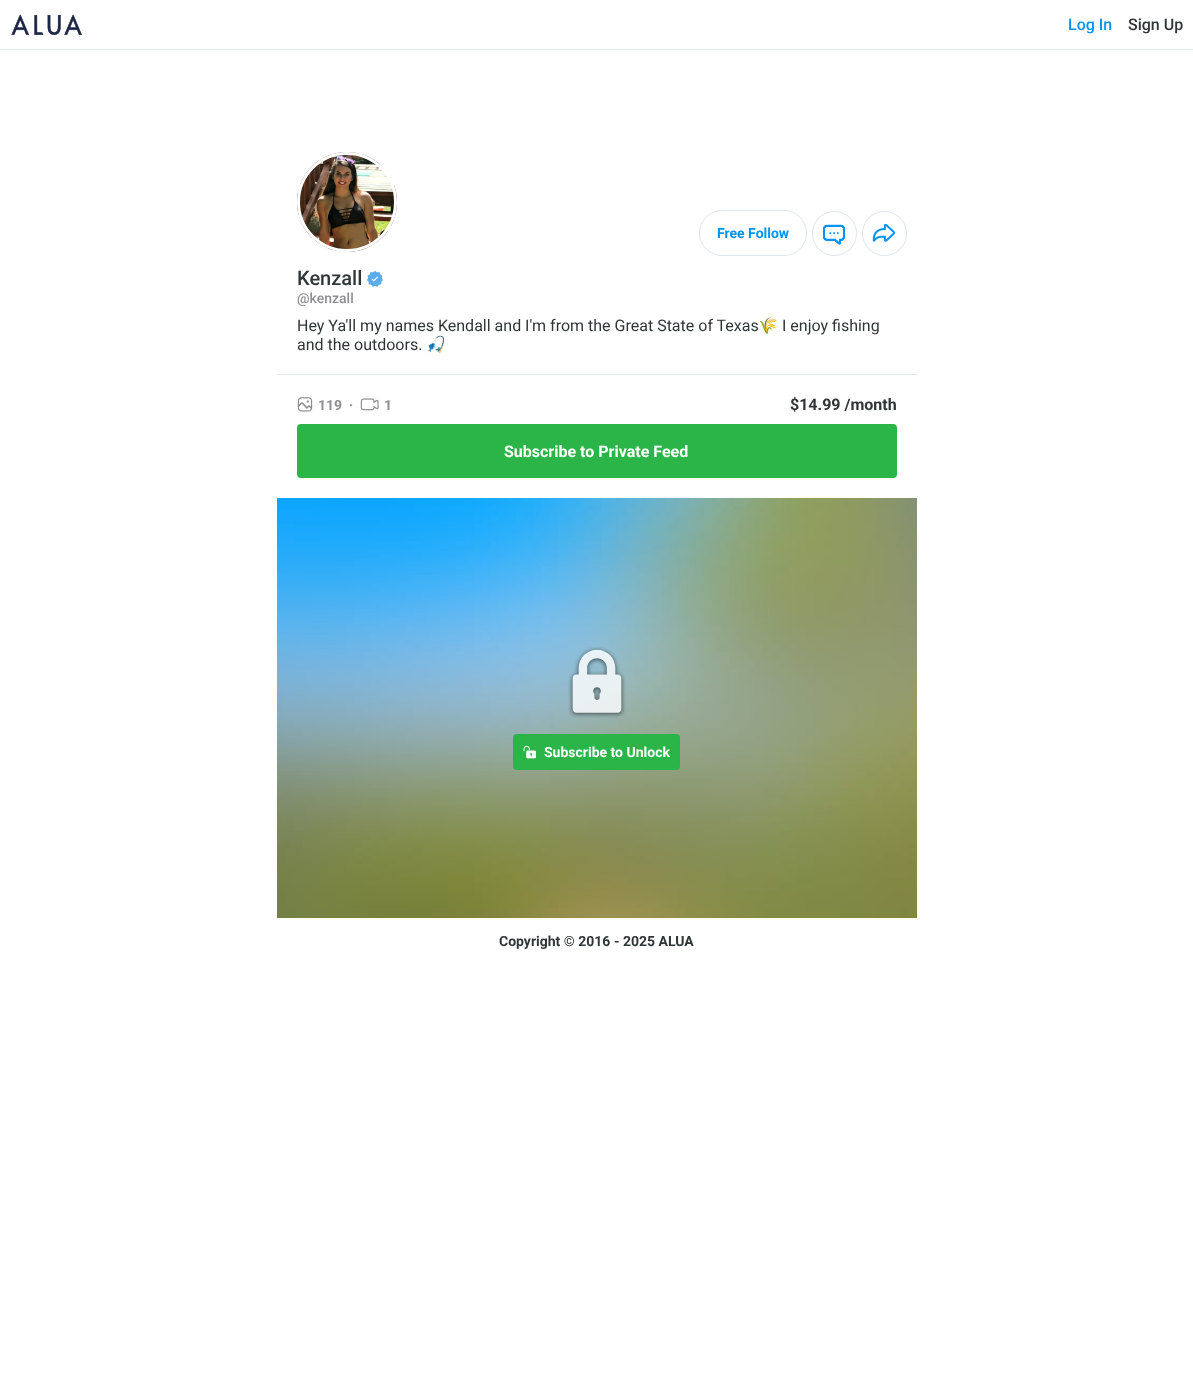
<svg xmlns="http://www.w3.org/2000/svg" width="1193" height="1377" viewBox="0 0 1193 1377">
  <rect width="100%" height="100%" fill="rgb(255,255,255)"/>
  <rect x="0" y="49" width="1193" height="1" fill="rgb(224,230,237)"/>
  <image x="11" y="14" width="71" height="21" href="pic1.png"/>
  <text x="1068" y="30" font-family="Roboto" font-size="16" font-weight="500" fill="rgb(0,148,244)">Log In</text>
  <text x="1128" y="30" font-family="Roboto" font-size="16" font-weight="500" fill="rgb(48,54,55)">Sign Up</text>
  <image x="297" y="152" width="100" height="100" href="pic2.png"/>
  <circle cx="347" cy="202" r="48.5" fill="none" stroke="rgb(255,255,255)" stroke-width="3"/>
  <rect x="699.5" y="210.5" width="107" height="45" rx="22.5" fill="none" stroke="rgb(224,230,237)"/>
  <text x="717" y="238" font-family="Roboto" font-size="14" font-weight="bold" fill="rgb(0,148,244)">Free Follow</text>
  <image x="812" y="211" width="45" height="45" href="pic3.png"/>
  <image x="862" y="211" width="45" height="45" href="pic4.png"/>
  <rect x="277" y="374" width="640" height="1" fill="rgb(224,230,237)"/>
  <text x="297" y="285" font-family="Roboto" font-size="20" font-weight="500" fill="rgb(48,54,55)">Kenzall</text>
  <image x="367" y="270" width="16" height="17" href="pic5.png"/>
  <text x="297" y="303" font-family="Roboto" font-size="14" font-weight="500" fill="rgb(142,142,147)">@kenzall</text>
  <text x="297" y="331" font-family="Roboto" font-size="16" fill="rgb(48,54,55)">Hey Ya'll my names Kendall and I'm from the Great State of Texas</text>
  <text x="758" y="331" font-family="Noto Color Emoji" font-size="16" fill="rgb(48,54,55)">🌾</text>
  <g font-family="Roboto" font-size="16" fill="rgb(48,54,55)">
    <text x="782" y="331">I enjoy fishing</text>
    <text x="297" y="350">and the outdoors.</text>
  </g>
  <text x="426" y="350" font-family="Noto Color Emoji" font-size="16" fill="rgb(48,54,55)">🎣</text>
  <image x="297" y="397" width="16" height="15" href="pic6.png"/>
  <g font-family="Roboto" font-size="14" font-weight="bold" fill="rgb(142,142,147)">
    <text x="318" y="410">119</text>
    <text x="349" y="410">·</text>
  </g>
  <image x="360" y="398" width="19" height="13" href="pic7.png"/>
  <text x="384" y="410" font-family="Roboto" font-size="14" font-weight="bold" fill="rgb(142,142,147)">1</text>
  <text x="790" y="410" font-family="Roboto" font-size="16" font-weight="bold" fill="rgb(48,54,55)">$14.99 /month</text>
  <rect x="297" y="424" width="600" height="54" rx="4" fill="rgb(43,181,73)"/>
  <text x="504" y="457" font-family="Roboto" font-size="16" font-weight="bold" fill="rgb(255,255,255)">Subscribe to Private Feed</text>
  <image x="277" y="498" width="640" height="420" href="pic8.png"/>
  <image x="568" y="647" width="58" height="71" href="pic9.png"/>
  <rect x="513" y="734" width="167" height="36" rx="4" fill="rgb(43,181,73)"/>
  <image x="523" y="745" width="13" height="14" href="pic10.png"/>
  <text x="544" y="757" font-family="Roboto" font-size="14" font-weight="bold" fill="rgb(255,255,255)">Subscribe to Unlock</text>
  <text x="499" y="946" font-family="Roboto" font-size="14" font-weight="bold" fill="rgb(48,54,55)">Copyright © 2016 - 2025 ALUA</text>
</svg>
